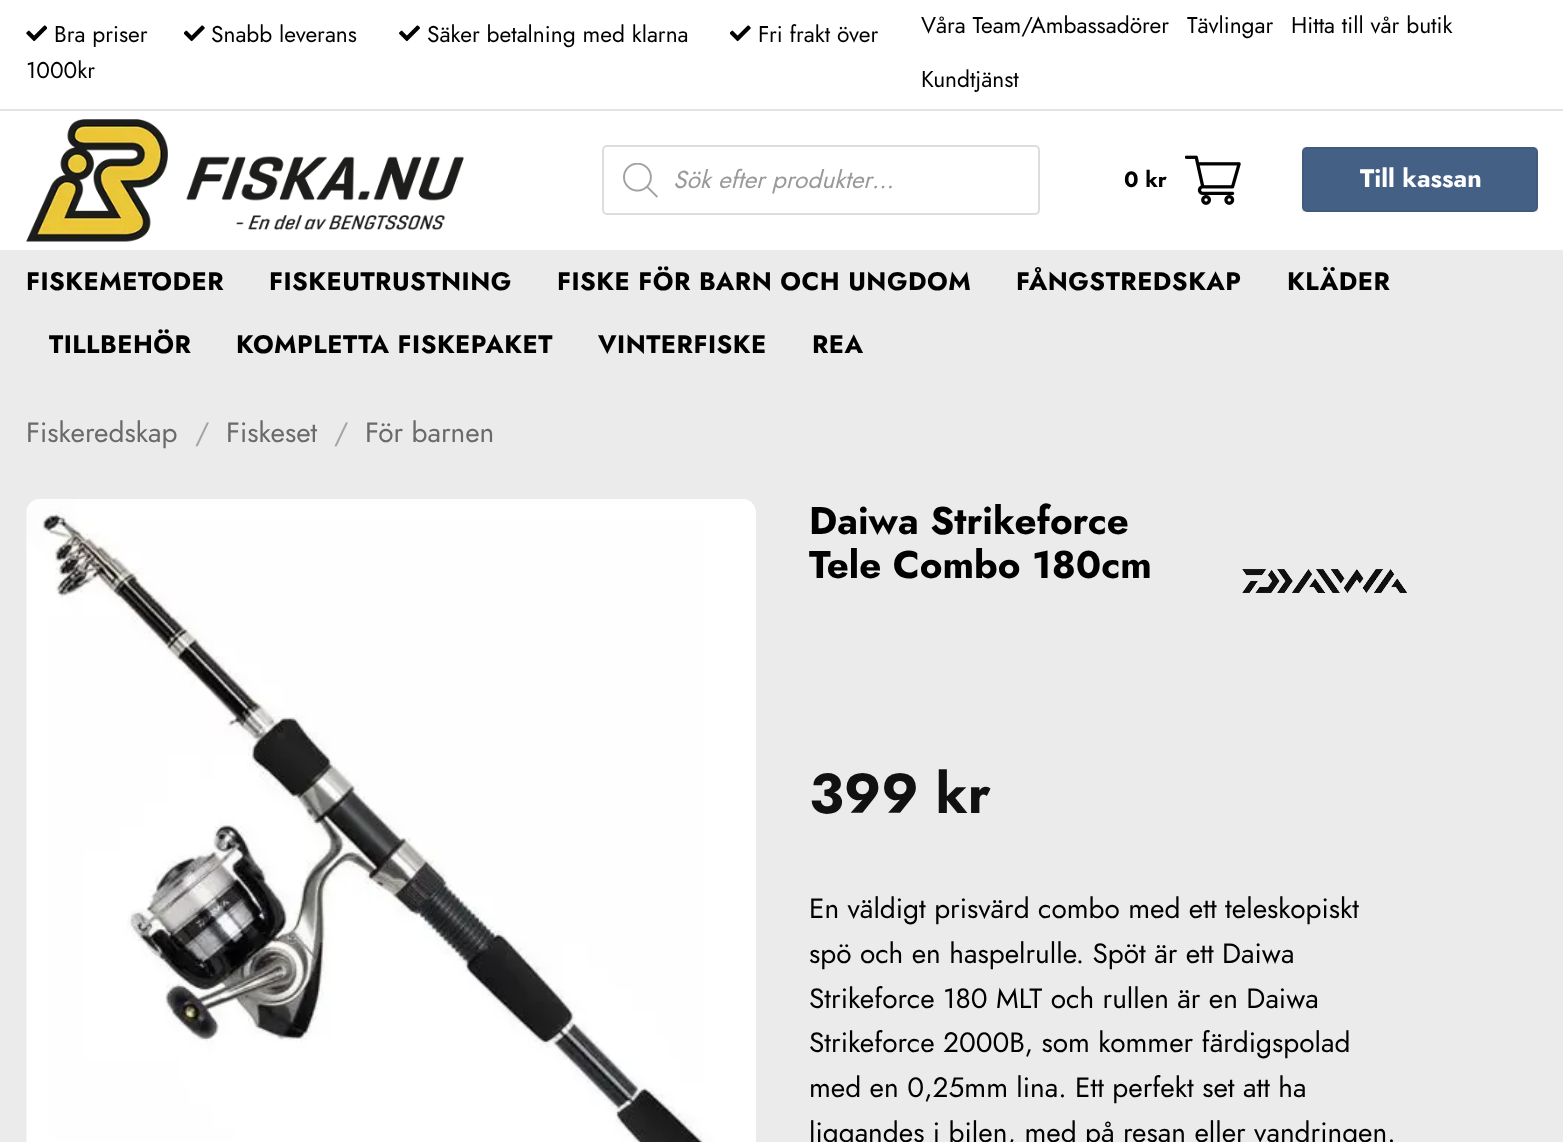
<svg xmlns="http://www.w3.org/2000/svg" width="1563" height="1142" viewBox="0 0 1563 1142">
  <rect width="100%" height="100%" fill="rgb(235,235,235)"/>
  <rect x="0" y="0" width="1563" height="250" fill="rgb(255,255,255)"/>
  <rect x="0" y="109" width="1563" height="2" fill="rgb(228,228,228)"/>
  <image x="730" y="25" width="21" height="17" href="pic1.png"/>
  <g font-family="Jost" font-size="22.75" fill="rgb(0,0,0)">
    <text x="758" y="42">Fri frakt över</text>
    <text x="26" y="78">1000kr</text>
  </g>
  <image x="26" y="25" width="21" height="17" href="pic2.png"/>
  <text x="54" y="42" font-family="Jost" font-size="22.75" fill="rgb(0,0,0)">Bra priser</text>
  <image x="184" y="25" width="21" height="17" href="pic1.png"/>
  <text x="211" y="42" font-family="Jost" font-size="22.75" fill="rgb(0,0,0)">Snabb leverans</text>
  <image x="399" y="25" width="21" height="17" href="pic3.png"/>
  <g font-family="Jost" font-size="22.75" fill="rgb(0,0,0)">
    <text x="427" y="42">Säker betalning med klarna</text>
    <text x="921" y="33">Våra Team/Ambassadörer</text>
    <text x="1187" y="33">Tävlingar</text>
    <text x="1291" y="33">Hitta till vår butik</text>
    <text x="921" y="87">Kundtjänst</text>
  </g>
  <image x="26" y="119" width="438" height="123" href="pic4.png"/>
  <rect x="603" y="146" width="436" height="68" rx="4" fill="none" stroke="rgb(221,221,221)" stroke-width="2"/>
  <image x="623" y="163" width="35" height="35" href="pic5.png"/>
  <text x="673" y="188" font-family="Jost" font-size="24.5" font-style="italic" fill="rgb(153,153,153)">Sök efter produkter…</text>
  <text x="1124" y="187" font-family="Jost" font-size="22" font-weight="bold" fill="rgb(0,0,0)">0 kr</text>
  <image x="1185" y="155" width="56" height="50" href="pic6.png"/>
  <rect x="1302" y="147" width="236" height="65" rx="5" fill="rgb(68,96,132)"/>
  <rect x="1303" y="148" width="234" height="63" fill="none" stroke="rgba(0,0,0,0.05)" stroke-width="2"/>
  <text x="1360" y="187" font-family="Jost" font-size="25.25" font-weight="bold" fill="rgb(255,255,255)">Till kassan</text>
  <g font-family="Jost" font-size="25.25" font-weight="bold" letter-spacing="0.5" fill="rgb(0,0,0)">
    <text x="26" y="290">FISKEMETODER</text>
    <text x="269" y="290">FISKEUTRUSTNING</text>
    <text x="557" y="290">FISKE FÖR BARN OCH UNGDOM</text>
    <text x="1016" y="290">FÅNGSTREDSKAP</text>
    <text x="1287" y="290">KLÄDER</text>
    <text x="49" y="353">TILLBEHÖR</text>
    <text x="236" y="353">KOMPLETTA FISKEPAKET</text>
    <text x="598" y="353">VINTERFISKE</text>
    <text x="812" y="353">REA</text>
  </g>
  <text x="26" y="442" font-family="Jost" font-size="28" fill="rgb(106,106,106)">Fiskeredskap</text>
  <text x="195" y="442" font-family="Jost" font-size="28" fill="rgb(165,165,165)">/</text>
  <text x="226" y="442" font-family="Jost" font-size="28" fill="rgb(106,106,106)">Fiskeset</text>
  <text x="334" y="442" font-family="Jost" font-size="28" fill="rgb(165,165,165)">/</text>
  <text x="365" y="442" font-family="Jost" font-size="28" fill="rgb(106,106,106)">För barnen</text>
  <image x="26" y="499" width="730" height="643" href="pic7.png"/>
  <g font-family="Jost" font-size="38.5" font-weight="bold" fill="rgb(0,0,0)">
    <text>
      <tspan x="809" y="534">Daiwa Strikeforce</tspan>
      <tspan x="809" y="578">Tele Combo 180cm</tspan>
    </text>
  </g>
  <image x="1242" y="568" width="165" height="25" href="pic8.png"/>
  <text x="809" y="813" font-family="Jost" font-size="56" font-weight="bold" fill="rgb(17,17,17)">399 kr</text>
  <g font-family="Jost" font-size="28" fill="rgb(0,0,0)">
    <text>
      <tspan x="809" y="918">En väldigt prisvärd combo med ett teleskopiskt</tspan>
      <tspan x="809" y="963">spö och en haspelrulle. Spöt är ett Daiwa</tspan>
      <tspan x="809" y="1008">Strikeforce 180 MLT och rullen är en Daiwa</tspan>
      <tspan x="809" y="1052">Strikeforce 2000B, som kommer färdigspolad</tspan>
      <tspan x="809" y="1097">med en 0,25mm lina. Ett perfekt set att ha</tspan>
      <tspan x="809" y="1142">liggandes i bilen, med på resan eller vandringen.</tspan>
    </text>
  </g>
</svg>
